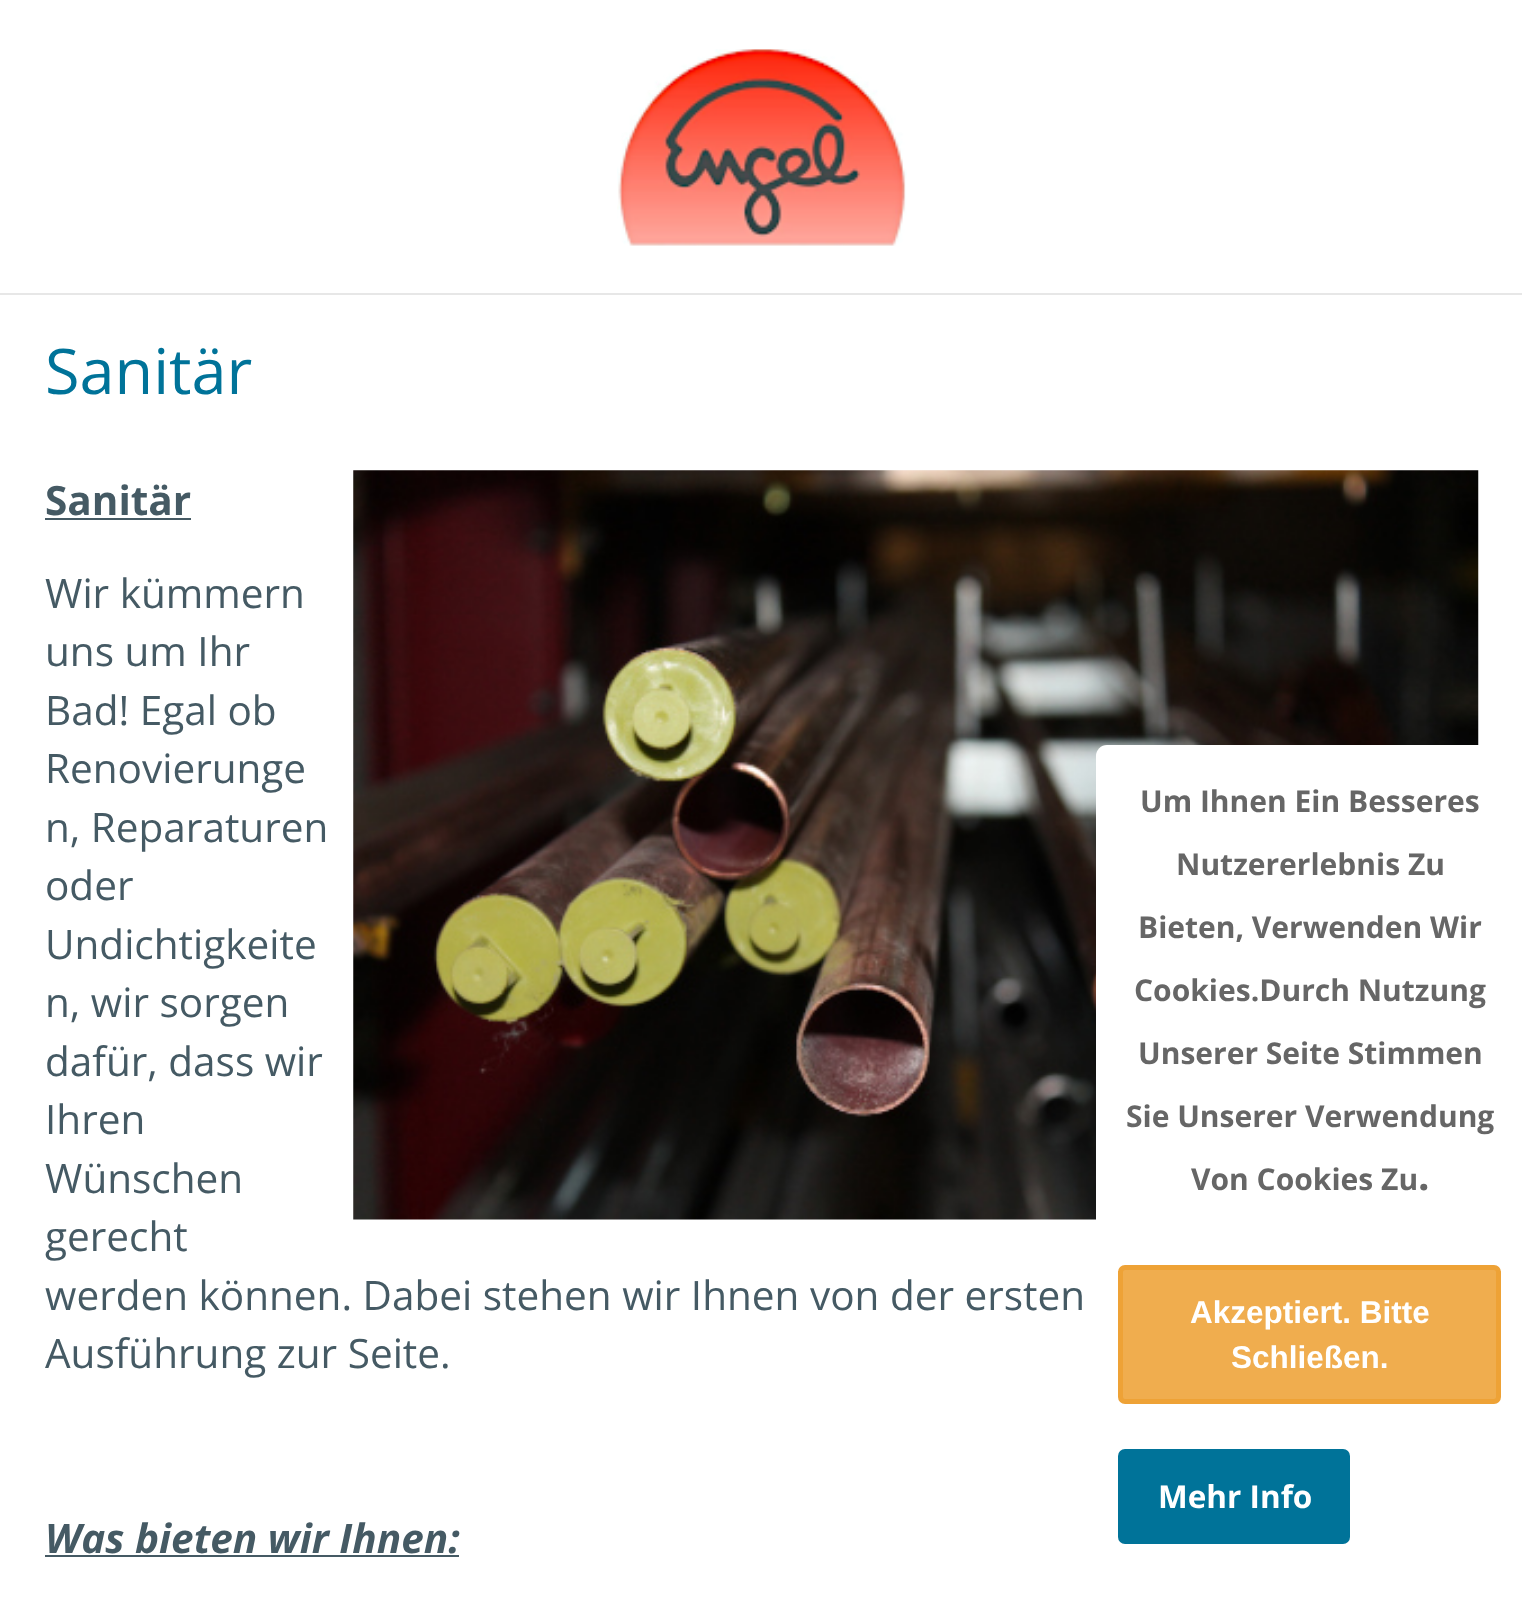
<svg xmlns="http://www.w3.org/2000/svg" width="1522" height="1601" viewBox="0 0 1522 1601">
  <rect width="100%" height="100%" fill="rgb(255,255,255)"/>
  <image x="617" y="49" width="290" height="197" href="pic1.png"/>
  <rect x="0" y="293" width="1522" height="2" fill="rgb(231,231,231)"/>
  <text x="45" y="394" font-family="Open Sans" font-size="63" fill="rgb(0,115,153)">Sanitär</text>
  <image x="353" y="470" width="1126" height="750" href="pic2.png"/>
  <text x="45" y="515" font-family="Open Sans" font-size="40.5" font-weight="bold" fill="rgb(69,90,100)">Sanitär</text>
  <rect x="45" y="518" width="146" height="2" fill="rgb(69,90,100)"/>
  <g font-family="Open Sans" font-size="40.5" fill="rgb(69,90,100)">
    <text>
      <tspan x="45" y="608">Wir kümmern</tspan>
      <tspan x="45" y="666">uns um Ihr</tspan>
      <tspan x="45" y="725">Bad! Egal ob</tspan>
      <tspan x="45" y="783">Renovierunge</tspan>
      <tspan x="45" y="842">n, Reparaturen</tspan>
      <tspan x="45" y="900">oder</tspan>
      <tspan x="45" y="959">Undichtigkeite</tspan>
      <tspan x="45" y="1017">n, wir sorgen</tspan>
      <tspan x="45" y="1076">dafür, dass wir</tspan>
      <tspan x="45" y="1134">Ihren</tspan>
      <tspan x="45" y="1193">Wünschen</tspan>
      <tspan x="45" y="1251">gerecht</tspan>
      <tspan x="45" y="1310">werden können. Dabei stehen wir Ihnen von der ersten</tspan>
      <tspan x="45" y="1368">Ausführung zur Seite.</tspan>
    </text>
  </g>
  <text x="45" y="1553" font-family="Open Sans" font-size="40.5" font-weight="bold" font-style="italic" fill="rgb(69,90,100)">Was bieten wir Ihnen:</text>
  <rect x="45" y="1555" width="414" height="2" fill="rgb(69,90,100)"/>
  <rect x="1096" y="745" width="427" height="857" rx="11" fill="rgb(255,255,255)"/>
  <g font-family="Open Sans" font-size="30" font-weight="bold" fill="rgb(102,102,102)">
    <text x="1140" y="812">Um Ihnen Ein Besseres</text>
    <text x="1176" y="875">Nutzererlebnis Zu</text>
    <text x="1138" y="938">Bieten, Verwenden Wir</text>
    <text x="1134" y="1001">Cookies.Durch Nutzung</text>
    <text x="1138" y="1064">Unserer Seite Stimmen</text>
    <text x="1126" y="1127">Sie Unserer Verwendung</text>
    <text x="1191" y="1190">Von Cookies Zu</text>
  </g>
  <text x="1418" y="1190" font-family="Open Sans" font-size="40.5" font-weight="bold" fill="rgb(102,102,102)">.</text>
  <rect x="1120.5" y="1267.5" width="378" height="134" rx="4.5" fill="rgb(240,173,78)" stroke="rgb(238,162,54)" stroke-width="5"/>
  <g font-family="Liberation Sans" font-size="31.5" font-weight="bold" fill="rgb(255,255,255)">
    <text x="1190" y="1323">Akzeptiert. Bitte</text>
    <text x="1231" y="1368">Schließen.</text>
  </g>
  <rect x="1118" y="1449" width="232" height="95" rx="7" fill="rgb(0,115,153)"/>
  <text x="1158" y="1508" font-family="Open Sans" font-size="31.5" font-weight="bold" fill="rgb(255,255,255)">Mehr Info</text>
</svg>
